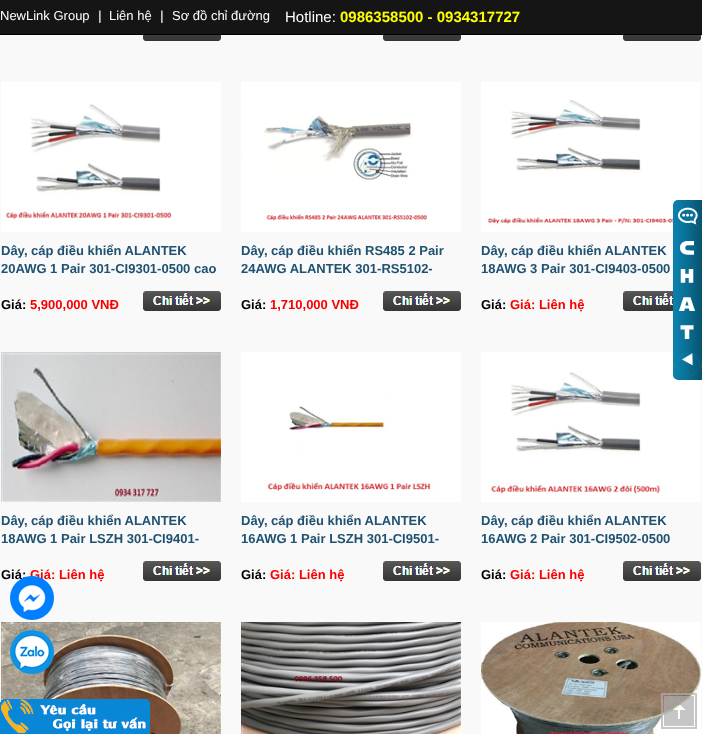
<svg xmlns="http://www.w3.org/2000/svg" width="702" height="734" viewBox="0 0 702 734">
  <rect width="100%" height="100%" fill="rgb(249,249,249)"/>
  <rect x="0" y="0" width="702" height="34" fill="rgb(21,21,21)"/>
  <rect x="0" y="34" width="702" height="1" fill="rgb(0,0,0)"/>
  <text x="0" y="20" font-family="Liberation Sans" font-size="13" fill="rgb(255,255,255)">NewLink Group</text>
  <text x="98" y="20" font-family="Liberation Sans" font-size="13" font-weight="bold" fill="rgb(195,195,195)">|</text>
  <text x="109" y="20" font-family="Liberation Sans" font-size="13" fill="rgb(255,255,255)">Liên hệ</text>
  <text x="160" y="20" font-family="Liberation Sans" font-size="13" font-weight="bold" fill="rgb(195,195,195)">|</text>
  <text x="172" y="20" font-family="Liberation Sans" font-size="13" fill="rgb(255,255,255)">Sơ đồ chỉ đường</text>
  <text x="285" y="22" font-family="Liberation Sans" font-size="15" fill="rgb(255,255,255)">Hotline:</text>
  <text x="340" y="22" font-family="Liberation Sans" font-size="15" font-weight="bold" fill="rgb(253,255,0)">0986358500 - 0934317727</text>
  <image x="143" y="35" width="78" height="6" href="pic1.png"/>
  <image x="383" y="35" width="78" height="6" href="pic1.png"/>
  <image x="623" y="35" width="78" height="6" href="pic1.png"/>
  <image x="1" y="82" width="220" height="150" href="pic2.png"/>
  <g font-family="Liberation Sans" font-size="13" font-weight="bold" fill="rgb(31,81,112)">
    <text>
      <tspan x="1" y="255">Dây, cáp điều khiển ALANTEK</tspan>
      <tspan x="1" y="273">20AWG 1 Pair 301-CI9301-0500 cao</tspan>
    </text>
  </g>
  <text x="1" y="309" font-family="Liberation Sans" font-size="13" font-weight="bold" fill="rgb(0,0,0)">Giá:</text>
  <text x="30" y="309" font-family="Liberation Sans" font-size="13" font-weight="bold" fill="rgb(249,0,0)">5,900,000 VNĐ</text>
  <image x="143" y="291" width="78" height="20" href="pic3.png"/>
  <image x="241" y="82" width="220" height="150" href="pic4.png"/>
  <g font-family="Liberation Sans" font-size="13" font-weight="bold" fill="rgb(31,81,112)">
    <text>
      <tspan x="241" y="255">Dây, cáp điều khiển RS485 2 Pair</tspan>
      <tspan x="241" y="273">24AWG ALANTEK 301-RS5102-</tspan>
    </text>
  </g>
  <text x="241" y="309" font-family="Liberation Sans" font-size="13" font-weight="bold" fill="rgb(0,0,0)">Giá:</text>
  <text x="270" y="309" font-family="Liberation Sans" font-size="13" font-weight="bold" fill="rgb(249,0,0)">1,710,000 VNĐ</text>
  <image x="383" y="291" width="78" height="20" href="pic3.png"/>
  <image x="481" y="82" width="220" height="150" href="pic5.png"/>
  <g font-family="Liberation Sans" font-size="13" font-weight="bold" fill="rgb(31,81,112)">
    <text>
      <tspan x="481" y="255">Dây, cáp điều khiển ALANTEK</tspan>
      <tspan x="481" y="273">18AWG 3 Pair 301-CI9403-0500</tspan>
    </text>
  </g>
  <text x="481" y="309" font-family="Liberation Sans" font-size="13" font-weight="bold" fill="rgb(0,0,0)">Giá:</text>
  <text x="510" y="309" font-family="Liberation Sans" font-size="13" font-weight="bold" fill="rgb(249,0,0)">Giá: Liên hệ</text>
  <image x="623" y="291" width="50" height="20" href="pic6.png"/>
  <image x="1" y="352" width="220" height="150" href="pic7.png"/>
  <g font-family="Liberation Sans" font-size="13" font-weight="bold" fill="rgb(31,81,112)">
    <text>
      <tspan x="1" y="525">Dây, cáp điều khiển ALANTEK</tspan>
      <tspan x="1" y="543">18AWG 1 Pair LSZH 301-CI9401-</tspan>
    </text>
  </g>
  <text x="1" y="579" font-family="Liberation Sans" font-size="13" font-weight="bold" fill="rgb(0,0,0)">Giá:</text>
  <text x="30" y="579" font-family="Liberation Sans" font-size="13" font-weight="bold" fill="rgb(249,0,0)">Giá: Liên hệ</text>
  <image x="143" y="561" width="78" height="20" href="pic3.png"/>
  <image x="241" y="352" width="220" height="150" href="pic8.png"/>
  <g font-family="Liberation Sans" font-size="13" font-weight="bold" fill="rgb(31,81,112)">
    <text>
      <tspan x="241" y="525">Dây, cáp điều khiển ALANTEK</tspan>
      <tspan x="241" y="543">16AWG 1 Pair LSZH 301-CI9501-</tspan>
    </text>
  </g>
  <text x="241" y="579" font-family="Liberation Sans" font-size="13" font-weight="bold" fill="rgb(0,0,0)">Giá:</text>
  <text x="270" y="579" font-family="Liberation Sans" font-size="13" font-weight="bold" fill="rgb(249,0,0)">Giá: Liên hệ</text>
  <image x="383" y="561" width="78" height="20" href="pic3.png"/>
  <image x="481" y="352" width="220" height="150" href="pic9.png"/>
  <g font-family="Liberation Sans" font-size="13" font-weight="bold" fill="rgb(31,81,112)">
    <text>
      <tspan x="481" y="525">Dây, cáp điều khiển ALANTEK</tspan>
      <tspan x="481" y="543">16AWG 2 Pair 301-CI9502-0500</tspan>
    </text>
  </g>
  <text x="481" y="579" font-family="Liberation Sans" font-size="13" font-weight="bold" fill="rgb(0,0,0)">Giá:</text>
  <text x="510" y="579" font-family="Liberation Sans" font-size="13" font-weight="bold" fill="rgb(249,0,0)">Giá: Liên hệ</text>
  <image x="623" y="561" width="78" height="20" href="pic3.png"/>
  <image x="1" y="622" width="220" height="112" href="pic10.png"/>
  <image x="241" y="622" width="220" height="112" href="pic11.png"/>
  <image x="481" y="622" width="220" height="112" href="pic12.png"/>
  <image x="673" y="200" width="29" height="180" href="pic13.png"/>
  <image x="10" y="576" width="44" height="44" href="pic14.png"/>
  <image x="10" y="630" width="44" height="44" href="pic15.png"/>
  <image x="0" y="699" width="150" height="35" href="pic16.png"/>
  <image x="661" y="693" width="36" height="36" href="pic17.png"/>
</svg>
